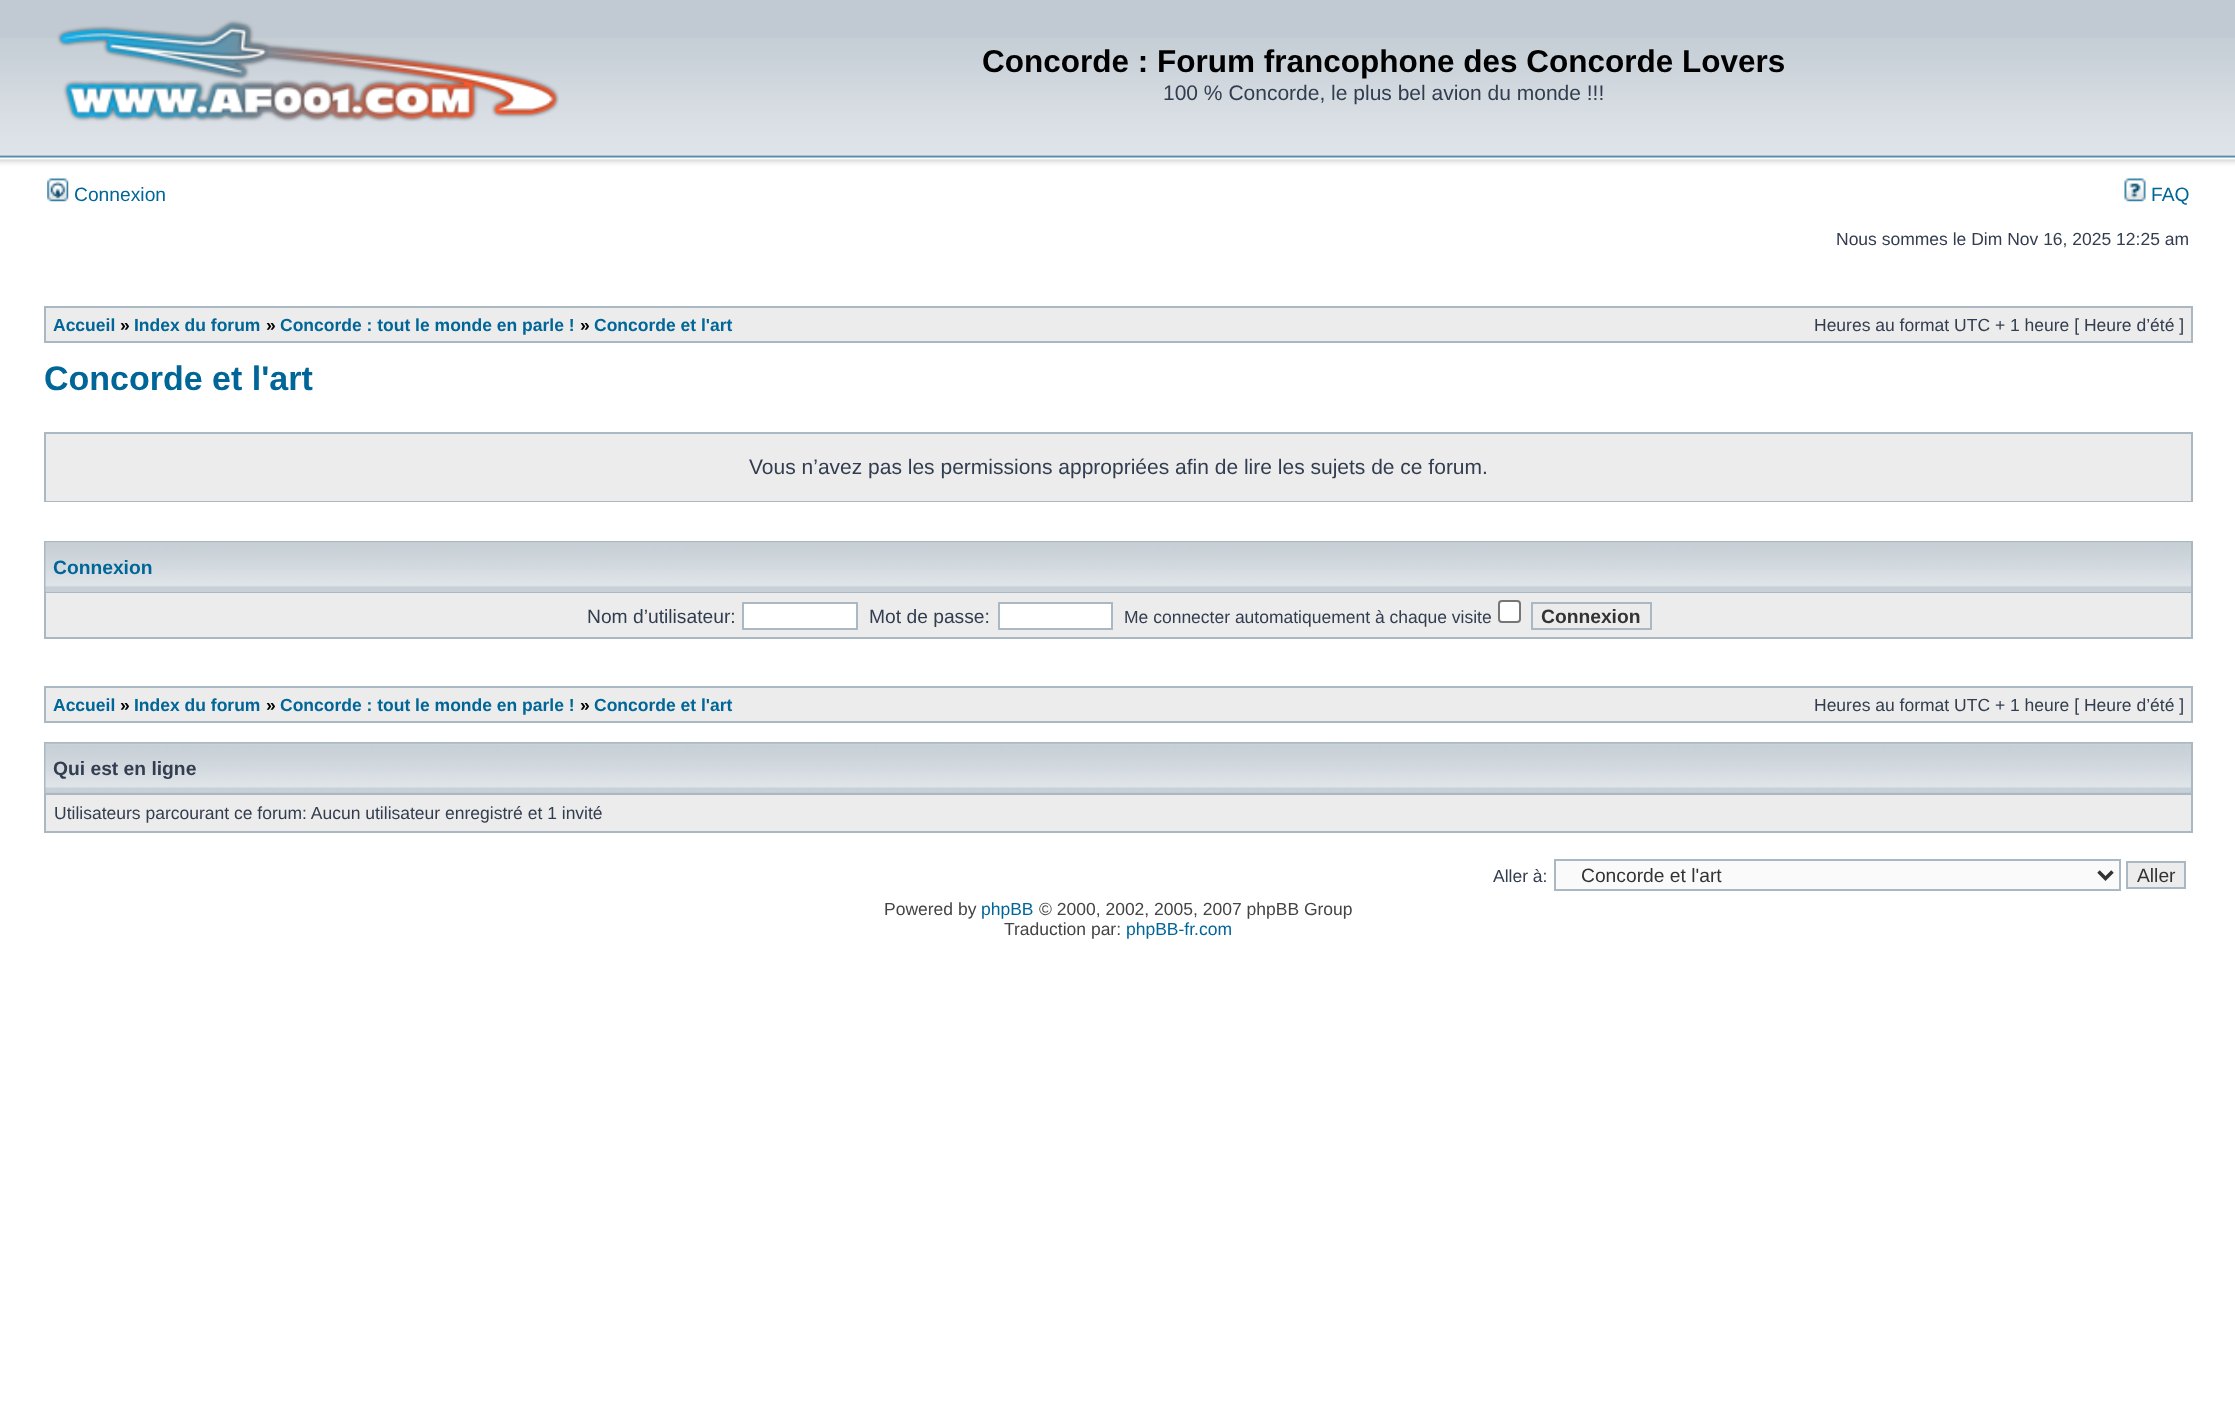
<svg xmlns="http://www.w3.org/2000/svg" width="2235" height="1421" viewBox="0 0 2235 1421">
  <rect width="100%" height="100%" fill="rgb(255,255,255)"/>
  <rect x="0" y="0" width="2235" height="38" fill="rgb(193,202,210)"/>
  <image x="0" y="38" width="2235" height="137" href="pic1.png"/>
  <image x="57" y="20" width="502" height="102" href="pic2.png"/>
  <text x="982" y="72" font-family="Liberation Sans" font-size="31.5" font-weight="bold" fill="rgb(0,0,0)">Concorde : Forum francophone des Concorde Lovers</text>
  <text x="1163" y="100" font-family="Liberation Sans" font-size="21" fill="rgb(50,61,79)">100 % Concorde, le plus bel avion du monde !!!</text>
  <image x="47" y="178" width="22" height="24" href="pic3.png"/>
  <text x="74" y="201" font-family="Liberation Sans" font-size="19.25" fill="rgb(0,101,151)">Connexion</text>
  <image x="2124" y="178" width="22" height="24" href="pic4.png"/>
  <text x="2151" y="201" font-family="Liberation Sans" font-size="19.25" fill="rgb(0,101,151)">FAQ</text>
  <text x="1836" y="245" font-family="Liberation Sans" font-size="17.5" fill="rgb(50,61,79)">Nous sommes le Dim Nov 16, 2025 12:25 am</text>
  <rect x="44" y="306" width="2149" height="37" fill="rgb(169,184,194)"/>
  <rect x="46" y="308" width="2145" height="33" fill="rgb(236,236,236)"/>
  <text x="53" y="331" font-family="Liberation Sans" font-size="17.5" font-weight="bold" fill="rgb(0,101,151)">Accueil</text>
  <text x="120" y="331" font-family="Liberation Sans" font-size="17.5" font-weight="bold" fill="rgb(0,0,0)">»</text>
  <text x="134" y="331" font-family="Liberation Sans" font-size="17.5" font-weight="bold" fill="rgb(0,101,151)">Index du forum</text>
  <text x="266" y="331" font-family="Liberation Sans" font-size="17.5" font-weight="bold" fill="rgb(0,0,0)">»</text>
  <text x="280" y="331" font-family="Liberation Sans" font-size="17.5" font-weight="bold" fill="rgb(0,101,151)">Concorde : tout le monde en parle !</text>
  <text x="580" y="331" font-family="Liberation Sans" font-size="17.5" font-weight="bold" fill="rgb(0,0,0)">»</text>
  <text x="594" y="331" font-family="Liberation Sans" font-size="17.5" font-weight="bold" fill="rgb(0,101,151)">Concorde et l'art</text>
  <text x="1814" y="331" font-family="Liberation Sans" font-size="17.5" fill="rgb(50,61,79)">Heures au format UTC + 1 heure [ Heure d’été ]</text>
  <text x="44" y="390" font-family="Liberation Sans" font-size="34" font-weight="bold" fill="rgb(0,101,151)">Concorde et l'art</text>
  <rect x="44" y="432" width="2149" height="70" fill="rgb(169,184,194)"/>
  <rect x="46" y="434" width="2145" height="67" fill="rgb(236,236,236)"/>
  <text x="749" y="474" font-family="Liberation Sans" font-size="21" fill="rgb(50,61,79)">Vous n’avez pas les permissions appropriées afin de lire les sujets de ce forum.</text>
  <rect x="44" y="541" width="2149" height="98" fill="rgb(169,184,194)"/>
  <rect x="46" y="591" width="2145" height="1" fill="rgb(199,208,215)"/>
  <image x="45" y="542" width="2146" height="50" href="pic5.png"/>
  <text x="53" y="574" font-family="Liberation Sans" font-size="19.25" font-weight="bold" fill="rgb(0,101,151)">Connexion</text>
  <rect x="46" y="593" width="2145" height="44" fill="rgb(236,236,236)"/>
  <text x="587" y="623" font-family="Liberation Sans" font-size="19.25" fill="rgb(50,61,79)">Nom d’utilisateur:</text>
  <rect x="743" y="603" width="114" height="26" fill="rgb(255,255,255)" stroke="rgb(169,184,194)" stroke-width="2"/>
  <text x="869" y="623" font-family="Liberation Sans" font-size="19.25" fill="rgb(50,61,79)">Mot de passe:</text>
  <rect x="999" y="603" width="113" height="26" fill="rgb(255,255,255)" stroke="rgb(169,184,194)" stroke-width="2"/>
  <text x="1124" y="623" font-family="Liberation Sans" font-size="17.5" fill="rgb(50,61,79)">Me connecter automatiquement à chaque visite</text>
  <rect x="1499" y="601" width="21" height="21" rx="3" fill="rgb(255,255,255)" stroke="rgb(118,118,118)" stroke-width="2"/>
  <rect x="1532" y="603" width="119" height="26" fill="none" stroke="rgb(169,184,194)" stroke-width="2"/>
  <text x="1541" y="623" font-family="Liberation Sans" font-size="19.25" font-weight="bold" fill="rgb(51,51,51)">Connexion</text>
  <rect x="44" y="686" width="2149" height="37" fill="rgb(169,184,194)"/>
  <rect x="46" y="688" width="2145" height="33" fill="rgb(236,236,236)"/>
  <text x="53" y="711" font-family="Liberation Sans" font-size="17.5" font-weight="bold" fill="rgb(0,101,151)">Accueil</text>
  <text x="120" y="711" font-family="Liberation Sans" font-size="17.5" font-weight="bold" fill="rgb(0,0,0)">»</text>
  <text x="134" y="711" font-family="Liberation Sans" font-size="17.5" font-weight="bold" fill="rgb(0,101,151)">Index du forum</text>
  <text x="266" y="711" font-family="Liberation Sans" font-size="17.5" font-weight="bold" fill="rgb(0,0,0)">»</text>
  <text x="280" y="711" font-family="Liberation Sans" font-size="17.5" font-weight="bold" fill="rgb(0,101,151)">Concorde : tout le monde en parle !</text>
  <text x="580" y="711" font-family="Liberation Sans" font-size="17.5" font-weight="bold" fill="rgb(0,0,0)">»</text>
  <text x="594" y="711" font-family="Liberation Sans" font-size="17.5" font-weight="bold" fill="rgb(0,101,151)">Concorde et l'art</text>
  <text x="1814" y="711" font-family="Liberation Sans" font-size="17.5" fill="rgb(50,61,79)">Heures au format UTC + 1 heure [ Heure d’été ]</text>
  <rect x="44" y="742" width="2149" height="91" fill="rgb(169,184,194)"/>
  <image x="45" y="743" width="2146" height="50" href="pic6.png"/>
  <text x="53" y="775" font-family="Liberation Sans" font-size="19.25" font-weight="bold" fill="rgb(50,61,79)">Qui est en ligne</text>
  <rect x="46" y="795" width="2145" height="36" fill="rgb(236,236,236)"/>
  <g font-family="Liberation Sans" font-size="17.5" fill="rgb(50,61,79)">
    <text x="54" y="819">Utilisateurs parcourant ce forum: Aucun utilisateur enregistré et 1 invité</text>
    <text x="1493" y="882">Aller à:</text>
  </g>
  <rect x="1555" y="860" width="565" height="30" fill="rgb(250,250,250)" stroke="rgb(169,184,194)" stroke-width="2"/>
  <path d="M2098.5 871.5L2105.5 878.5L2112.5 871.5" fill="none" stroke="rgb(51,51,51)" stroke-width="3.5"/>
  <text x="1581" y="882" font-family="Liberation Sans" font-size="19.25" fill="rgb(51,51,51)">Concorde et l'art</text>
  <rect x="2127" y="862" width="58" height="26" fill="rgb(236,236,236)" stroke="rgb(169,184,194)" stroke-width="2"/>
  <text x="2137" y="882" font-family="Liberation Sans" font-size="19.25" fill="rgb(51,51,51)">Aller</text>
  <text x="884" y="915" font-family="Liberation Sans" font-size="17.5" fill="rgb(68,68,68)">Powered by</text>
  <text x="981" y="915" font-family="Liberation Sans" font-size="17.5" fill="rgb(0,101,151)">phpBB</text>
  <g font-family="Liberation Sans" font-size="17.5" fill="rgb(68,68,68)">
    <text x="1039" y="915">© 2000, 2002, 2005, 2007 phpBB Group</text>
    <text x="1004" y="935">Traduction par:</text>
  </g>
  <text x="1126" y="935" font-family="Liberation Sans" font-size="17.5" fill="rgb(0,101,151)">phpBB-fr.com</text>
</svg>
